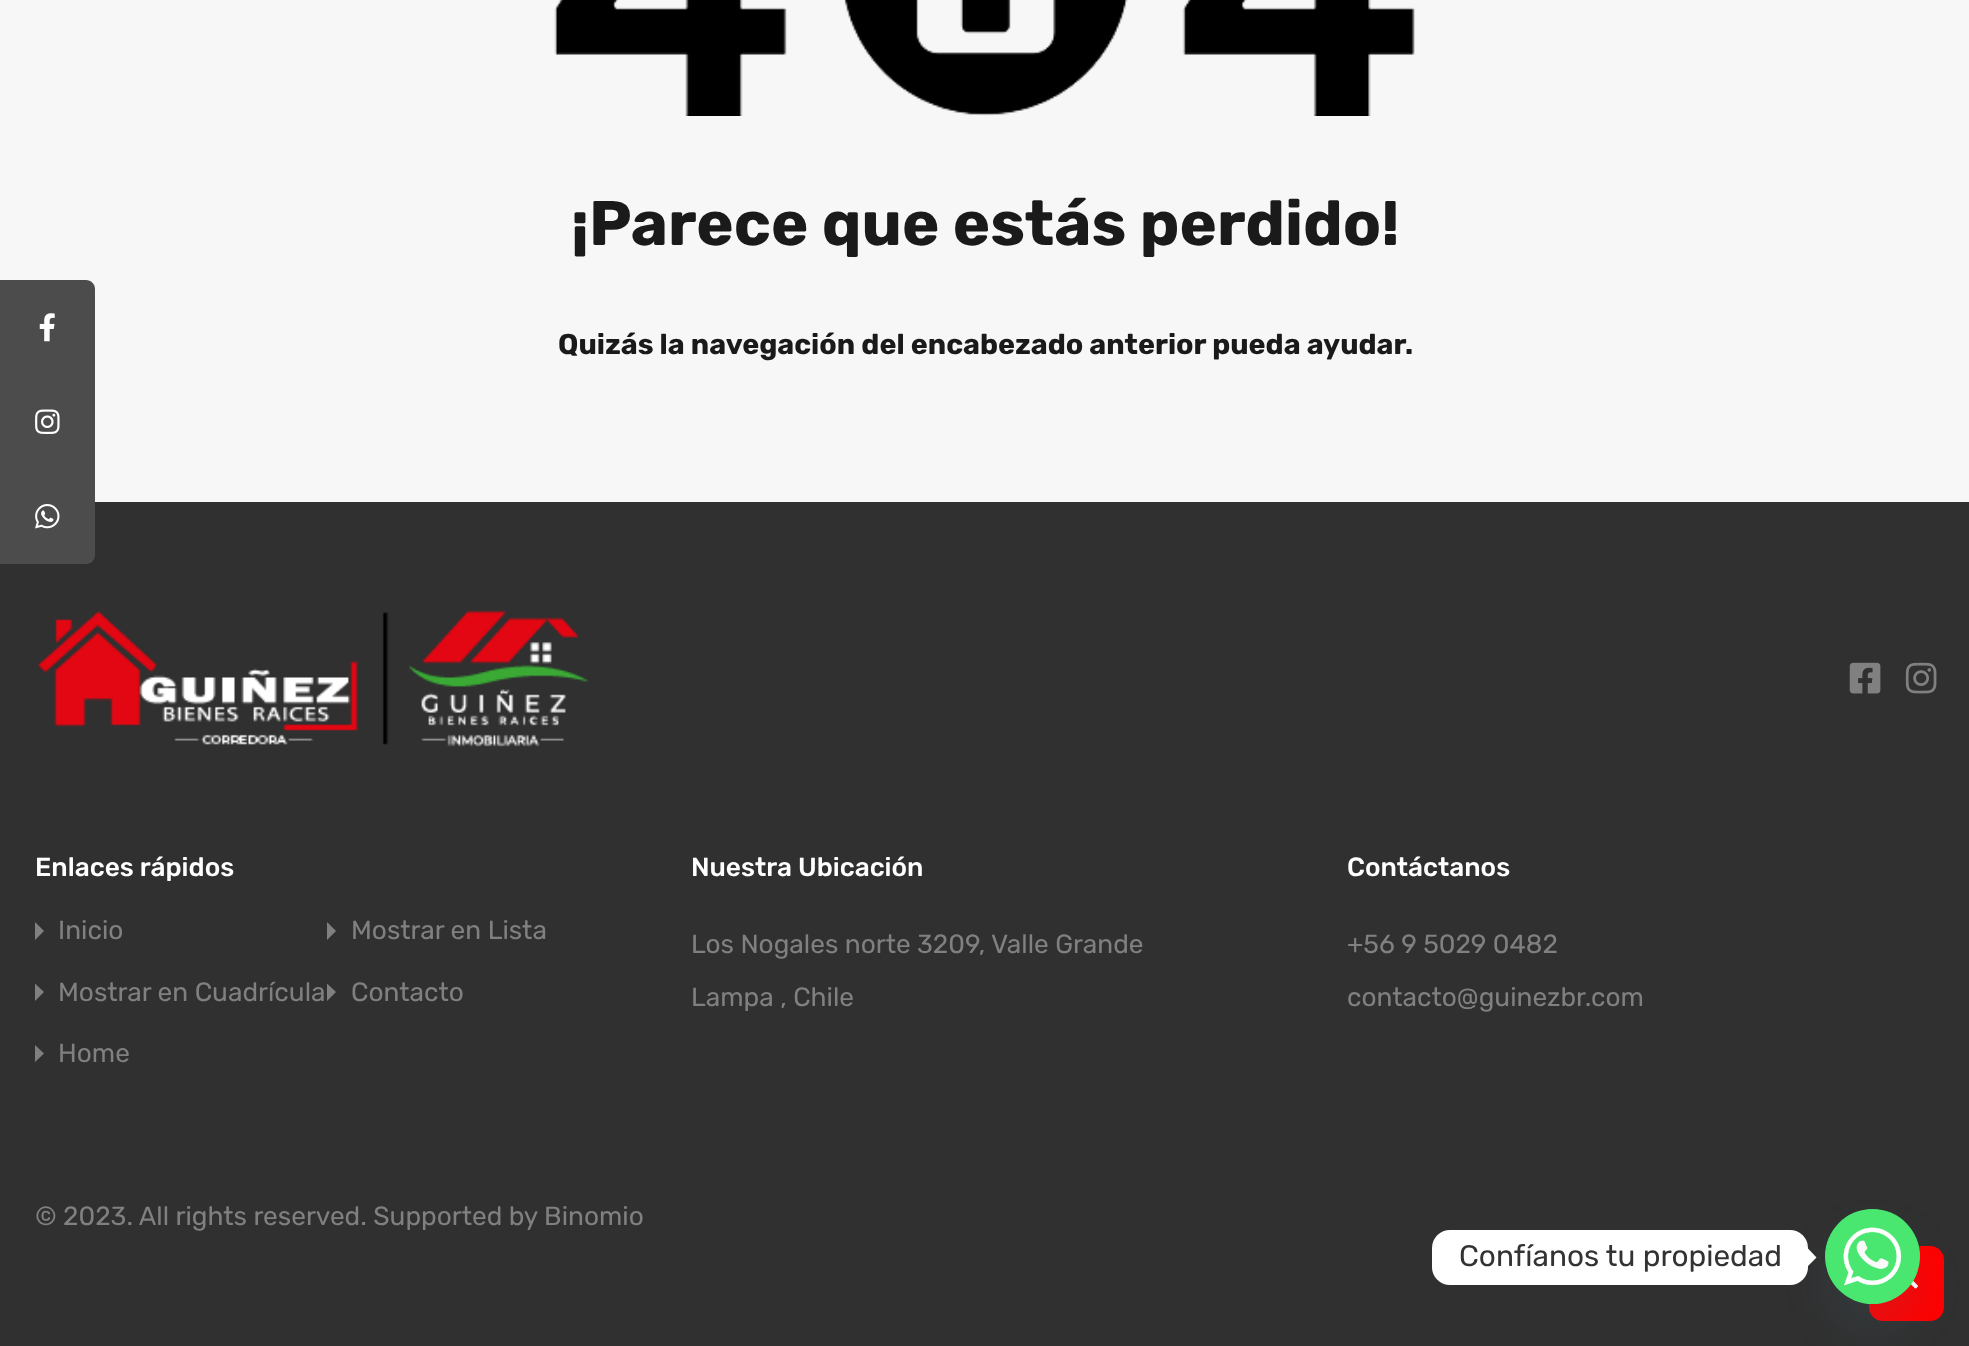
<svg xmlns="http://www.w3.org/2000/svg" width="1969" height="1346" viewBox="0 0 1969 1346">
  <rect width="100%" height="100%" fill="rgb(247,247,247)"/>
  <image x="554" y="0" width="861" height="116" href="pic1.png"/>
  <text x="571" y="245" font-family="Rubik" font-size="63" font-weight="bold" fill="rgb(26,26,26)">¡Parece que estás perdido!</text>
  <text x="558" y="354" font-family="Rubik" font-size="28.65" font-weight="bold" fill="rgb(26,26,26)">Quizás la navegación del encabezado anterior pueda ayudar.</text>
  <rect x="0" y="502" width="1969" height="844" fill="rgb(48,48,48)"/>
  <image x="38" y="610" width="551" height="137" href="pic2.png"/>
  <image x="1849" y="662" width="32" height="32" href="pic3.png"/>
  <image x="1905" y="662" width="32" height="32" href="pic4.png"/>
  <text x="35" y="876" font-family="Rubik" font-size="26.25" font-weight="500" fill="rgb(255,255,255)">Enlaces rápidos</text>
  <path d="M35 940V922L44 931Z" fill="rgb(128,128,128)"/>
  <text x="58" y="939" font-family="Rubik" font-size="26.25" fill="rgb(128,128,128)">Inicio</text>
  <path d="M327 940V922L336 931Z" fill="rgb(128,128,128)"/>
  <text x="351" y="939" font-family="Rubik" font-size="26.25" fill="rgb(128,128,128)">Mostrar en Lista</text>
  <path d="M35 1001V983.5L44 992Z" fill="rgb(128,128,128)"/>
  <text x="58" y="1001" font-family="Rubik" font-size="26.25" fill="rgb(128,128,128)">Mostrar en Cuadrícula</text>
  <path d="M327 1001V983.5L336 992Z" fill="rgb(128,128,128)"/>
  <text x="351" y="1001" font-family="Rubik" font-size="26.25" fill="rgb(128,128,128)">Contacto</text>
  <path d="M35 1062V1045L44 1053.5Z" fill="rgb(128,128,128)"/>
  <text x="58" y="1062" font-family="Rubik" font-size="26.25" fill="rgb(128,128,128)">Home</text>
  <text x="691" y="876" font-family="Rubik" font-size="26.25" font-weight="500" fill="rgb(255,255,255)">Nuestra Ubicación</text>
  <g font-family="Rubik" font-size="26.25" fill="rgb(128,128,128)">
    <text x="691" y="953">Los Nogales norte 3209, Valle Grande</text>
    <text x="691" y="1006">Lampa , Chile</text>
  </g>
  <text x="1347" y="876" font-family="Rubik" font-size="26.25" font-weight="500" fill="rgb(255,255,255)">Contáctanos</text>
  <g font-family="Rubik" font-size="26.25" fill="rgb(128,128,128)">
    <text x="1347" y="953">+56 9 5029 0482</text>
    <text x="1347" y="1006">contacto@guinezbr.com</text>
    <text x="35" y="1225">© 2023. All rights reserved. Supported by Binomio</text>
  </g>
  <path d="M0 280H86C91 280 95 284 95 289V375H0Z" fill="rgb(76,76,76)"/>
  <image x="39" y="313" width="16" height="29" href="pic5.png"/>
  <rect x="0" y="375" width="95" height="94" fill="rgb(76,76,76)"/>
  <image x="35" y="409" width="25" height="25" href="pic6.png"/>
  <path d="M0 469H95V555C95 560 91 564 86 564H0Z" fill="rgb(76,76,76)"/>
  <image x="35" y="504" width="25" height="25" href="pic7.png"/>
  <rect x="1869" y="1246" width="75" height="75" rx="14" fill="rgb(255,0,0)"/>
  <image x="1910" y="1280" width="8" height="9" href="pic9.png"/>
  <rect x="1825" y="1237" width="95" height="95" rx="47.5" fill="rgba(73,104,126,0.16)" filter="blur(21px)"/>
  <rect x="1432" y="1230" width="376" height="55" rx="18" fill="rgb(255,255,255)"/>
  <text x="1459" y="1266" font-family="Rubik" font-size="29.75" fill="rgb(51,51,51)">Confíanos tu propiedad</text>
  <path d="M1808 1266V1248.5L1816.5 1257.5Z" fill="rgb(255,255,255)"/>
  <circle cx="1872.5" cy="1256.5" r="47.5" fill="rgb(73,230,112)"/>
  <image x="1825" y="1209" width="95" height="95" href="pic8.png"/>
</svg>
